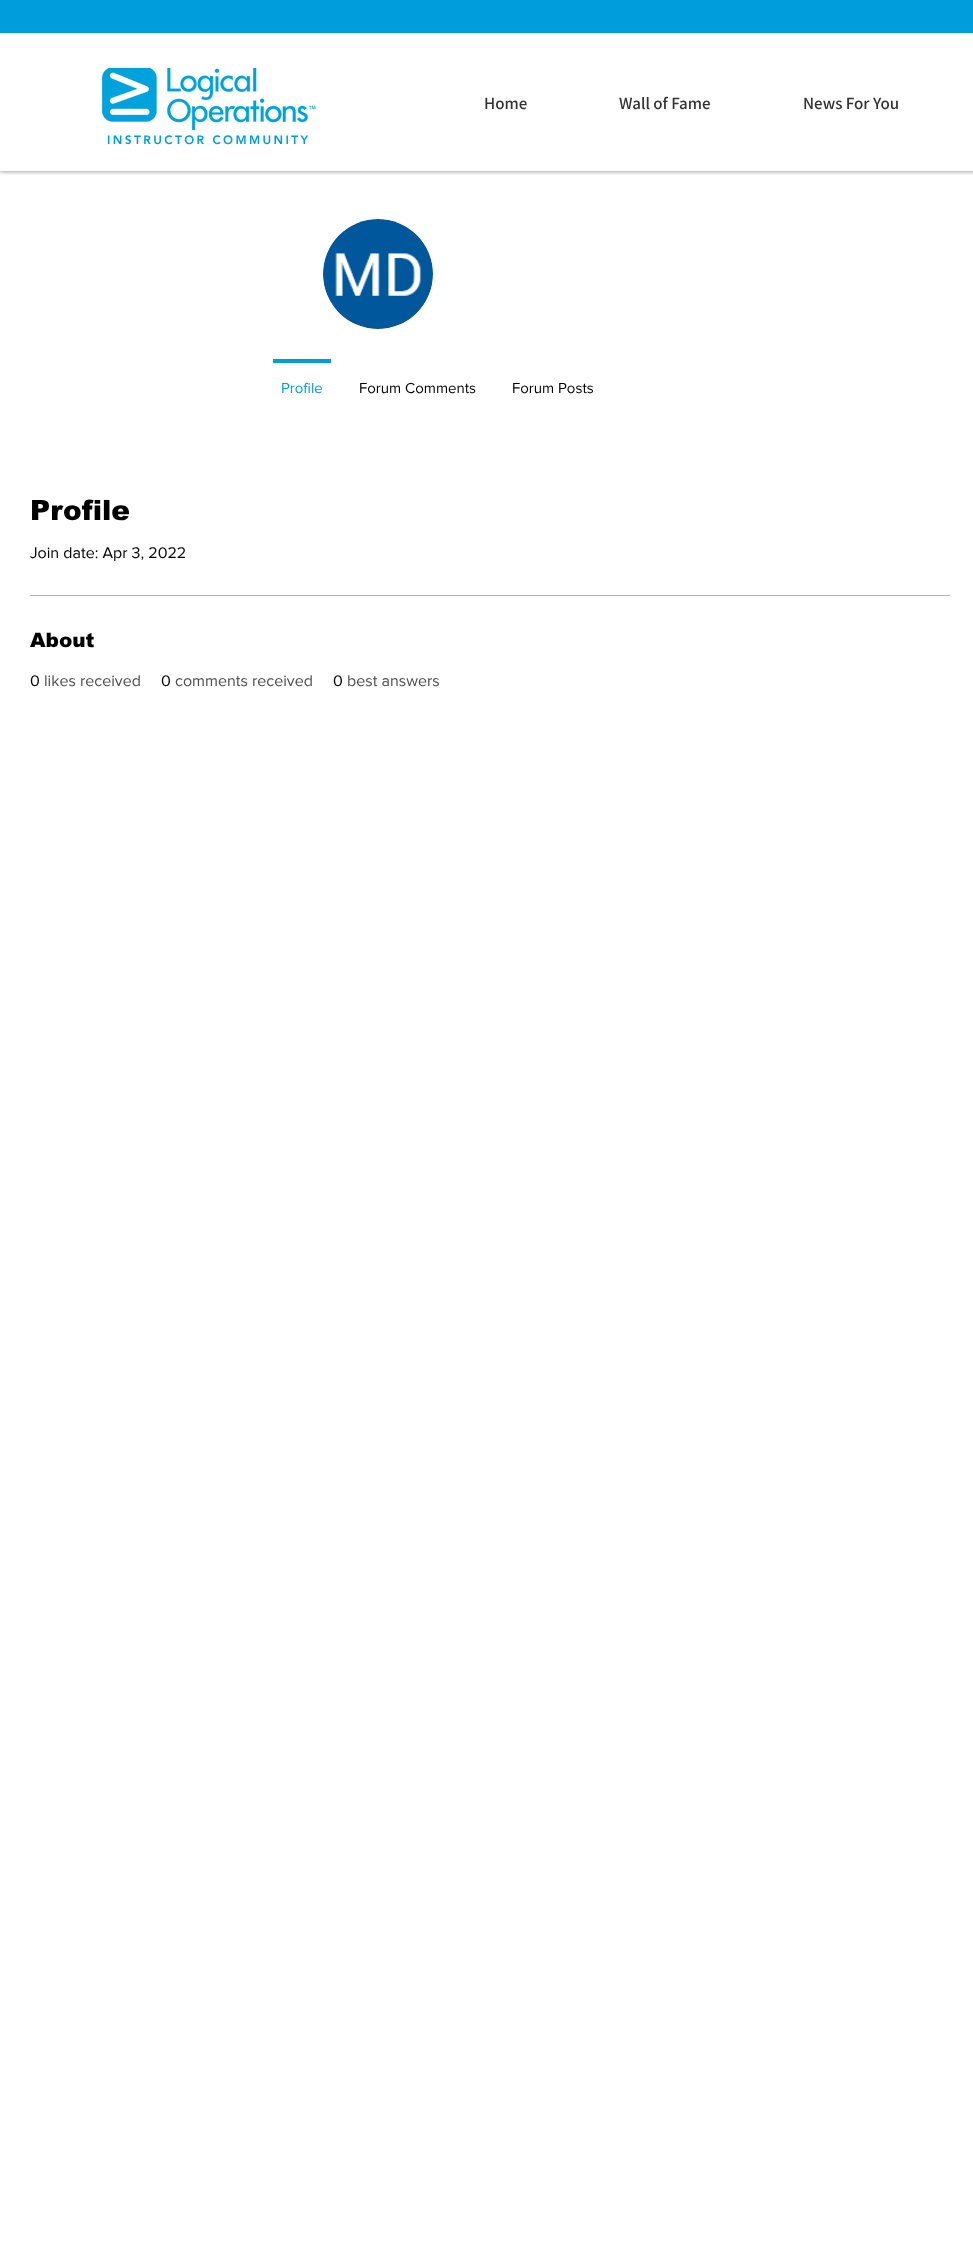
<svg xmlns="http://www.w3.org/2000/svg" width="973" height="2244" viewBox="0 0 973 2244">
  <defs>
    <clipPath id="clip1"><rect x="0" y="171" width="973" height="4"/></clipPath>
  </defs>
  <rect width="100%" height="100%" fill="rgb(255,255,255)"/>
  <g clip-path="url(#clip1)">
    <rect x="0" y="0" width="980" height="171" fill="rgba(0,0,0,0.5)" filter="blur(2.5px)"/>
  </g>
  <rect x="0" y="0" width="973" height="33" fill="rgb(0,157,220)"/>
  <image x="102" y="68" width="214" height="62" href="pic1.png"/>
  <g font-family="Assistant" font-size="17" font-weight="600" fill="rgb(50,50,50)">
    <text x="484" y="109">Home</text>
    <text x="619" y="109">Wall of Fame</text>
    <text x="803" y="109">News For You</text>
  </g>
  <text x="107" y="144" font-family="'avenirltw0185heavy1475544'" font-size="12" font-weight="900" letter-spacing="2.4" fill="rgb(0,157,220)">INSTRUCTOR COMMUNITY</text>
  <circle cx="378" cy="274" r="55" fill="rgb(216,216,216)"/>
  <image x="323" y="219" width="110" height="110" href="pic2.png"/>
  <rect x="273" y="359" width="58" height="4" fill="rgb(0,157,220)"/>
  <text x="281" y="393" font-family="'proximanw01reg'" font-size="15" fill="rgb(0,157,220)">Profile</text>
  <g font-family="'proximanw01reg'" font-size="15" fill="rgb(0,0,0)">
    <text x="359" y="393">Forum Comments</text>
    <text x="512" y="393">Forum Posts</text>
  </g>
  <text x="30" y="520" font-family="arial" font-size="28" font-weight="900" fill="rgb(0,0,0)">Profile</text>
  <text x="30" y="558" font-family="'proximanw01reg'" font-size="16" fill="rgb(0,0,0)">Join date: Apr 3, 2022</text>
  <rect x="30" y="595" width="920" height="1" fill="rgb(179,179,179)"/>
  <text x="30" y="647" font-family="arial" font-size="20" font-weight="900" fill="rgb(0,0,0)">About</text>
  <text x="30" y="686" font-family="'proximanw01reg'" font-size="16" fill="rgb(0,0,0)">0</text>
  <text x="44" y="686" font-family="'proximanw01reg'" font-size="16" fill="rgb(77,77,77)">likes received</text>
  <text x="161" y="686" font-family="'proximanw01reg'" font-size="16" fill="rgb(0,0,0)">0</text>
  <text x="175" y="686" font-family="'proximanw01reg'" font-size="16" fill="rgb(77,77,77)">comments received</text>
  <text x="333" y="686" font-family="'proximanw01reg'" font-size="16" fill="rgb(0,0,0)">0</text>
  <text x="347" y="686" font-family="'proximanw01reg'" font-size="16" fill="rgb(77,77,77)">best answers</text>
</svg>
